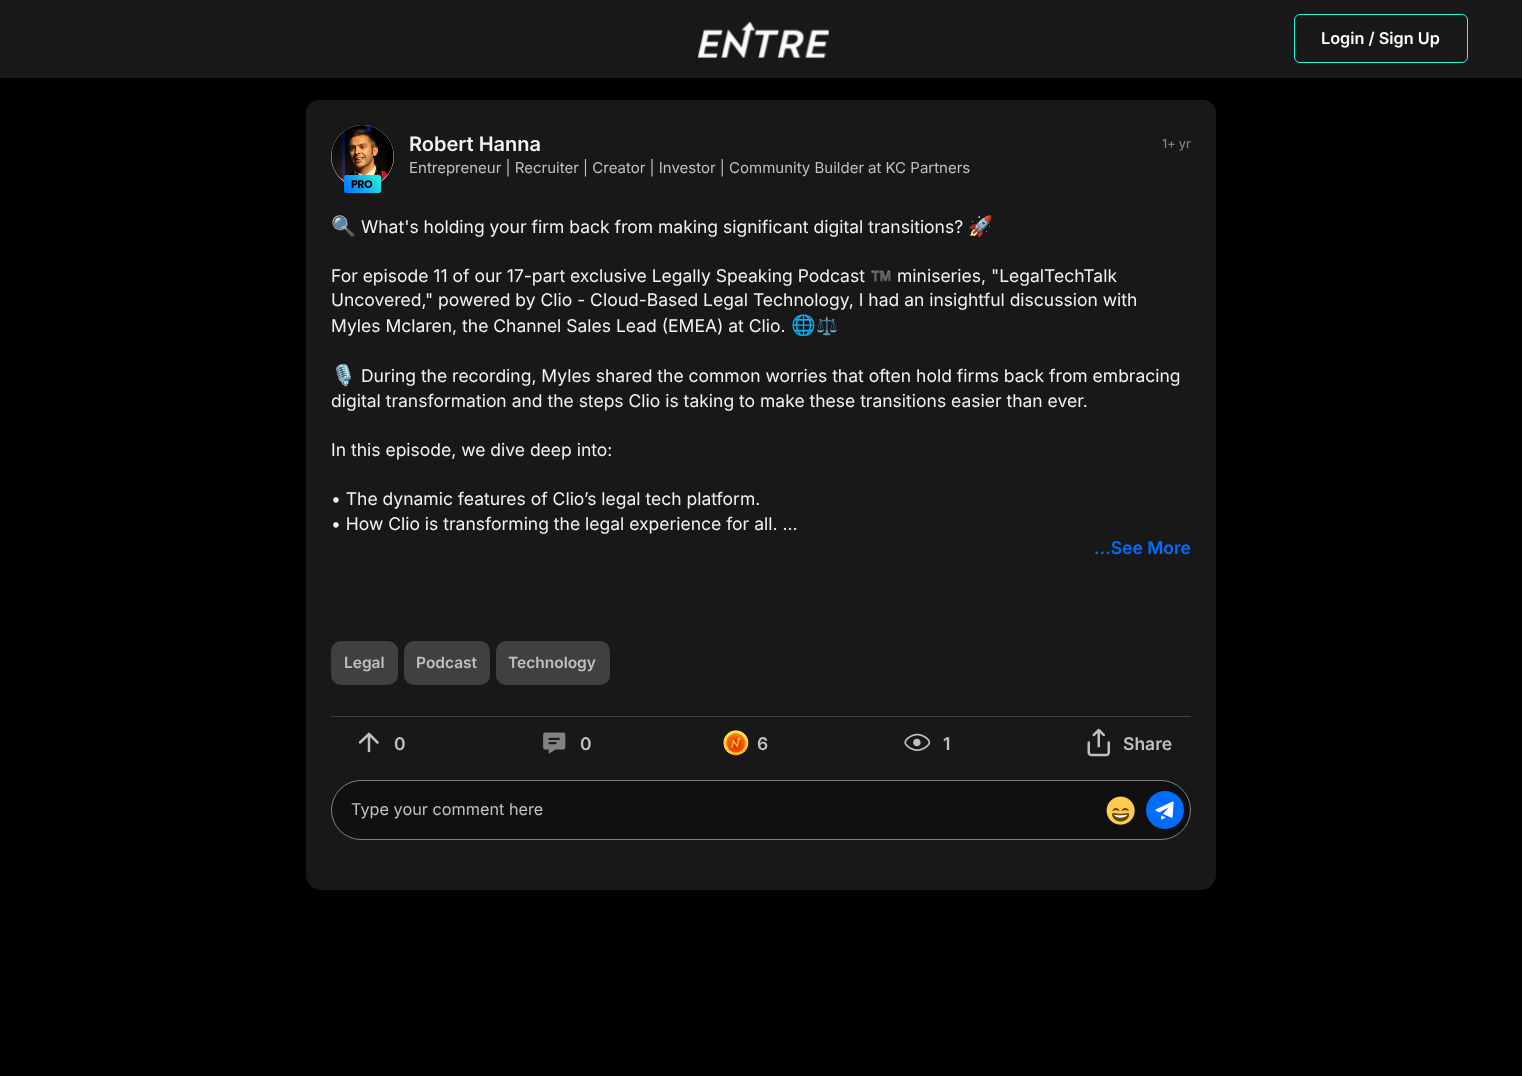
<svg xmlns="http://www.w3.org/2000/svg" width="1522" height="1076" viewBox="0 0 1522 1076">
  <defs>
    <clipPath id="clip1"><rect x="409" y="159" width="561" height="19"/></clipPath>
    <linearGradient id="g1" gradientUnits="userSpaceOnUse" x1="346" y1="195" x2="379" y2="172"><stop offset="0" stop-color="rgb(0,109,255)"/><stop offset="1" stop-color="rgb(40,249,218)"/></linearGradient>
  </defs>
  <rect width="100%" height="100%" fill="rgb(0,0,0)"/>
  <rect x="0" y="0" width="1522" height="78" fill="rgb(24,24,24)"/>
  <image x="697" y="21" width="132" height="37" href="pic1.png"/>
  <rect x="1294.5" y="14.5" width="173" height="48" rx="5.5" fill="none" stroke="rgb(40,249,218)"/>
  <text x="1321" y="44" font-family="Inter" font-size="16.25" font-weight="600" fill="rgb(255,255,255)">Login / Sign Up</text>
  <rect x="306" y="100" width="910" height="790" rx="15" fill="rgb(24,24,24)"/>
  <rect x="306" y="100" width="910" height="765" rx="13" fill="rgb(24,24,24)"/>
  <text x="409" y="151" font-family="Inter" font-size="20" font-weight="600" fill="rgb(242,242,242)">Robert Hanna</text>
  <g clip-path="url(#clip1)">
    <text x="409" y="173" font-family="Inter" font-size="15" fill="rgb(192,192,192)">Entrepreneur | Recruiter | Creator | Investor | Community Builder</text>
  </g>
  <text x="868" y="173" font-family="Inter" font-size="15" fill="rgb(192,192,192)">at KC Partners</text>
  <rect x="331" y="125" width="63" height="63" rx="31.5" fill="rgba(0,0,0,0.5)" filter="blur(1px)"/>
  <circle cx="362.5" cy="156.5" r="31.5" fill="rgb(242,242,242)"/>
  <image x="331" y="125" width="63" height="57" href="pic2.png"/>
  <rect x="344" y="175" width="37" height="18" rx="2.5" fill="url(#g1)"/>
  <text x="351" y="188" font-family="Poppins" font-size="11" font-weight="bold" letter-spacing="-0.5" fill="rgb(0,0,0)">PRO</text>
  <text x="1162" y="148" font-family="Inter" font-size="12.5" font-weight="500" fill="rgb(128,128,128)">1+ yr</text>
  <rect x="331" y="716" width="860" height="1" fill="rgb(64,64,64)"/>
  <text x="331" y="233" font-family="Noto Color Emoji" font-size="20" fill="rgb(242,242,242)">🔍</text>
  <text x="361" y="233" font-family="Inter" font-size="17.5" fill="rgb(242,242,242)">What's holding your firm back from making significant digital transitions?</text>
  <text x="968" y="233" font-family="Noto Color Emoji" font-size="20" fill="rgb(242,242,242)">🚀</text>
  <text x="331" y="282" font-family="Inter" font-size="17.5" fill="rgb(242,242,242)">For episode 11 of our 17-part exclusive Legally Speaking Podcast</text>
  <text x="870" y="282" font-family="Noto Color Emoji" font-size="17.5" fill="rgb(242,242,242)">™️</text>
  <g font-family="Inter" font-size="17.5" fill="rgb(242,242,242)">
    <text x="897" y="282">miniseries, "LegalTechTalk</text>
    <text>
      <tspan x="331" y="306">Uncovered," powered by Clio - Cloud-Based Legal Technology, I had an insightful discussion with</tspan>
      <tspan x="331" y="332">Myles Mclaren, the Channel Sales Lead (EMEA) at Clio.</tspan>
    </text>
  </g>
  <text x="791" y="332" font-family="Noto Color Emoji" font-size="20" fill="rgb(242,242,242)">🌐</text>
  <text x="816" y="332" font-family="Noto Color Emoji" font-size="17.5" fill="rgb(242,242,242)">⚖️</text>
  <text x="331" y="382" font-family="Noto Color Emoji" font-size="20" fill="rgb(242,242,242)">🎙</text>
  <g font-family="Inter" font-size="17.5" fill="rgb(242,242,242)">
    <text x="356" y="382">️ During the recording, Myles shared the common worries that often hold firms back from embracing</text>
    <text x="331" y="407">digital transformation and the steps Clio is taking to make these transitions easier than ever.</text>
    <text x="331" y="456">In this episode, we dive deep into:</text>
    <text>
      <tspan x="331" y="505">• The dynamic features of Clio’s legal tech platform.</tspan>
      <tspan x="331" y="530">• How Clio is transforming the legal experience for all. ...</tspan>
    </text>
  </g>
  <text x="1094" y="554" font-family="Inter" font-size="17.5" font-weight="600" fill="rgb(0,109,255)">...See More</text>
  <rect x="331" y="641" width="67" height="44" rx="10" fill="rgb(64,64,64)"/>
  <text x="344" y="668" font-family="Inter" font-size="15.5" font-weight="600" fill="rgb(192,192,192)">Legal</text>
  <rect x="404" y="641" width="86" height="44" rx="10" fill="rgb(64,64,64)"/>
  <text x="416" y="668" font-family="Inter" font-size="15.5" font-weight="600" fill="rgb(192,192,192)">Podcast</text>
  <rect x="496" y="641" width="114" height="44" rx="10" fill="rgb(64,64,64)"/>
  <text x="508" y="668" font-family="Inter" font-size="15.5" font-weight="600" fill="rgb(192,192,192)">Technology</text>
  <path d="M369 751V734M360 742.5L369 734L377.5 742.5" fill="none" stroke="rgb(192,192,192)" stroke-width="2.5" stroke-linecap="round" stroke-linejoin="round"/>
  <text x="394" y="750" font-family="Inter" font-size="17.5" font-weight="600" fill="rgb(192,192,192)">0</text>
  <image x="543" y="732" width="23" height="22" href="pic3.png"/>
  <text x="580" y="750" font-family="Inter" font-size="17.5" font-weight="600" fill="rgb(192,192,192)">0</text>
  <image x="723" y="730" width="26" height="26" href="pic4.png"/>
  <text x="757" y="750" font-family="Inter" font-size="17.5" font-weight="600" fill="rgb(192,192,192)">6</text>
  <image x="904" y="733" width="27" height="18" href="pic5.png"/>
  <text x="943" y="750" font-family="Inter" font-size="17.5" font-weight="600" fill="rgb(192,192,192)">1</text>
  <image x="1087" y="728" width="23" height="29" href="pic6.png"/>
  <text x="1123" y="750" font-family="Inter" font-size="17.5" font-weight="600" fill="rgb(192,192,192)">Share</text>
  <rect x="331.5" y="780.5" width="859" height="59" rx="29.5" fill="rgb(16,16,16)" stroke="rgb(128,128,128)"/>
  <text x="351" y="815" font-family="Inter" font-size="16.25" fill="rgb(192,192,192)">Type your comment here</text>
  <image x="1106" y="796" width="29" height="29" href="pic7.png"/>
  <circle cx="1165" cy="810" r="19" fill="rgb(0,109,255)"/>
  <image x="1155" y="801" width="19" height="19" href="pic8.png"/>
</svg>
